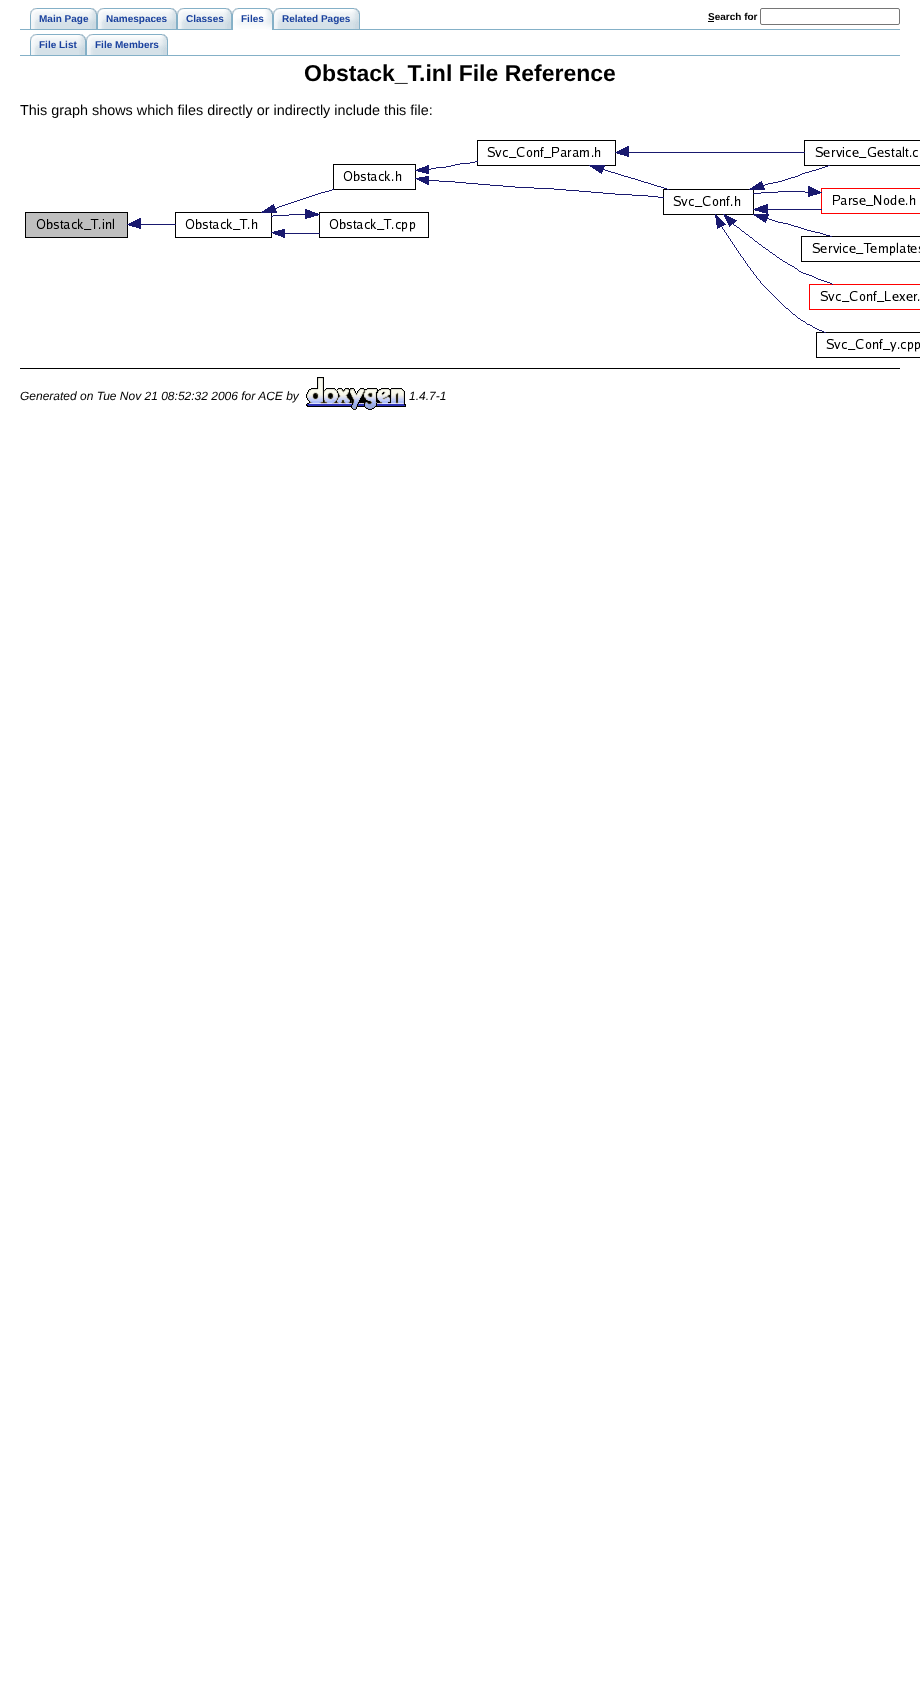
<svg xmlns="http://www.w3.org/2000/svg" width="920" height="1699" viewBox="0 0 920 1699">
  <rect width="100%" height="100%" fill="rgb(255,255,255)"/>
  <rect x="20" y="29" width="880" height="1" fill="rgb(132,176,199)"/>
  <image x="39" y="8" width="58" height="21" href="pic1.png"/>
  <image x="30" y="8" width="9" height="21" href="pic2.png"/>
  <text x="39" y="22" font-family="Liberation Sans" font-size="10" font-weight="bold" fill="rgb(26,65,157)">Main Page</text>
  <image x="106" y="8" width="71" height="21" href="pic3.png"/>
  <image x="97" y="8" width="9" height="21" href="pic2.png"/>
  <text x="106" y="22" font-family="Liberation Sans" font-size="10" font-weight="bold" fill="rgb(26,65,157)">Namespaces</text>
  <image x="186" y="8" width="46" height="21" href="pic4.png"/>
  <image x="177" y="8" width="9" height="21" href="pic2.png"/>
  <text x="186" y="22" font-family="Liberation Sans" font-size="10" font-weight="bold" fill="rgb(26,65,157)">Classes</text>
  <image x="239" y="8" width="34" height="22" href="pic5.png"/>
  <image x="232" y="8" width="7" height="22" href="pic6.png"/>
  <text x="241" y="22" font-family="Liberation Sans" font-size="10" font-weight="bold" fill="rgb(26,65,157)">Files</text>
  <image x="282" y="8" width="78" height="21" href="pic7.png"/>
  <image x="273" y="8" width="9" height="21" href="pic2.png"/>
  <text x="282" y="22" font-family="Liberation Sans" font-size="10" font-weight="bold" fill="rgb(26,65,157)">Related Pages</text>
  <text x="708" y="20" font-family="Liberation Sans" font-size="10" font-weight="bold" fill="rgb(0,0,0)">Search for</text>
  <rect x="708" y="21" width="6" height="1" fill="rgb(0,0,0)"/>
  <rect x="760.5" y="8.5" width="139" height="16" rx="1.5" fill="none" stroke="rgb(118,118,118)"/>
  <rect x="20" y="55" width="880" height="1" fill="rgb(132,176,199)"/>
  <image x="39" y="34" width="47" height="21" href="pic8.png"/>
  <image x="30" y="34" width="9" height="21" href="pic2.png"/>
  <text x="39" y="48" font-family="Liberation Sans" font-size="10" font-weight="bold" fill="rgb(26,65,157)">File List</text>
  <image x="95" y="34" width="73" height="21" href="pic9.png"/>
  <image x="86" y="34" width="9" height="21" href="pic2.png"/>
  <text x="95" y="48" font-family="Liberation Sans" font-size="10" font-weight="bold" fill="rgb(26,65,157)">File Members</text>
  <text x="304" y="81" font-family="Liberation Sans" font-size="23" font-weight="bold" fill="rgb(0,0,0)">Obstack_T.inl File Reference</text>
  <text x="20" y="115" font-family="Liberation Sans" font-size="14.4" fill="rgb(0,0,0)">This graph shows which files directly or indirectly include this file:</text>
  <image x="25" y="140" width="895" height="218" href="pic10.png"/>
  <rect x="20" y="368" width="880" height="1" fill="rgb(0,0,0)"/>
  <text x="20" y="400" font-family="Liberation Sans" font-size="12" font-style="italic" fill="rgb(0,0,0)">Generated on Tue Nov 21 08:52:32 2006 for ACE by</text>
  <image x="306" y="377" width="100" height="33" href="pic11.png"/>
  <text x="409" y="400" font-family="Liberation Sans" font-size="12" font-style="italic" fill="rgb(0,0,0)">1.4.7-1</text>
</svg>
